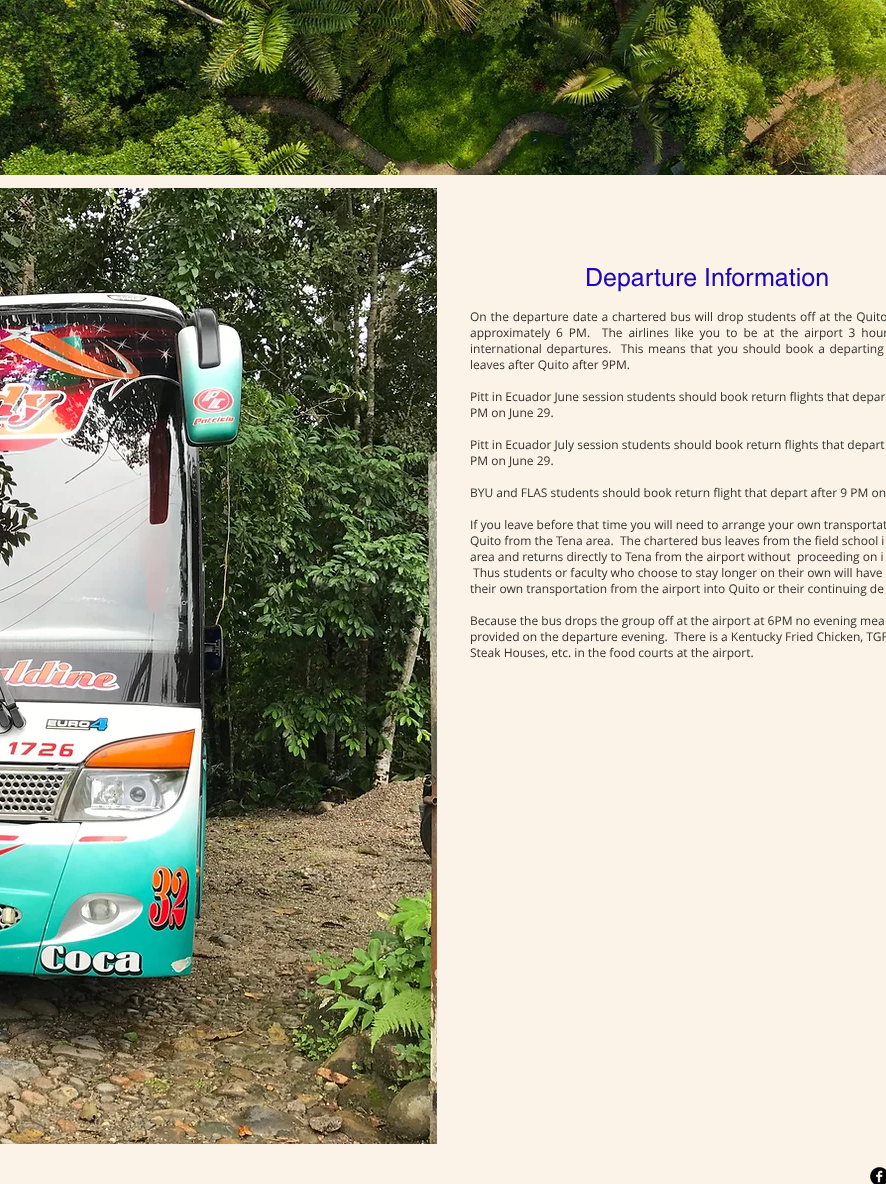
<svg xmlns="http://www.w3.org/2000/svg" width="886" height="1184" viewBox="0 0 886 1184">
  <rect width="100%" height="100%" fill="rgb(251,243,232)"/>
  <image x="0" y="0" width="886" height="175" href="pic1.png"/>
  <image x="0" y="188" width="437" height="956" href="pic2.png"/>
  <text x="585" y="286" font-family="helvetica" font-size="25" fill="rgb(30,6,186)">Departure Information</text>
  <g font-family="Open Sans" font-size="12" fill="rgb(50,49,46)">
    <text xml:space="preserve"><tspan x="470" y="321" word-spacing="0.75">On the departure date a chartered bus will drop students off at the Quito</tspan><tspan x="470" y="337" word-spacing="2.75">approximately 6 PM.  The airlines like you to be at the airport 3 hour</tspan><tspan x="470" y="353" word-spacing="1.5">international departures.  This means that you should book a departing</tspan><tspan x="470" y="369">leaves after Quito after 9PM.</tspan></text>
    <text>
      <tspan x="470" y="401">Pitt in Ecuador June session students should book return flights that depar</tspan>
      <tspan x="470" y="417">PM on June 29.</tspan>
    </text>
    <text>
      <tspan x="470" y="449">Pitt in Ecuador July session students should book return flights that depart</tspan>
      <tspan x="470" y="465">PM on June 29.</tspan>
    </text>
    <text x="470" y="497">BYU and FLAS students should book return flight that depart after 9 PM on</text>
    <text xml:space="preserve"><tspan x="470" y="529">If you leave before that time you will need to arrange your own transportat</tspan><tspan x="470" y="545">Quito from the Tena area.  The chartered bus leaves from the field school i</tspan><tspan x="470" y="561">area and returns directly to Tena from the airport without  proceeding on i</tspan></text>
    <text x="473" y="577">Thus students or faculty who choose to stay longer on their own will have</text>
    <text x="470" y="593">their own transportation from the airport into Quito or their continuing de</text>
    <text xml:space="preserve"><tspan x="470" y="625">Because the bus drops the group off at the airport at 6PM no evening mea</tspan><tspan x="470" y="641">provided on the departure evening.  There is a Kentucky Fried Chicken, TGF</tspan><tspan x="470" y="657">Steak Houses, etc. in the food courts at the airport.</tspan></text>
  </g>
  <image x="870" y="1167" width="16" height="17" href="pic3.png"/>
</svg>
